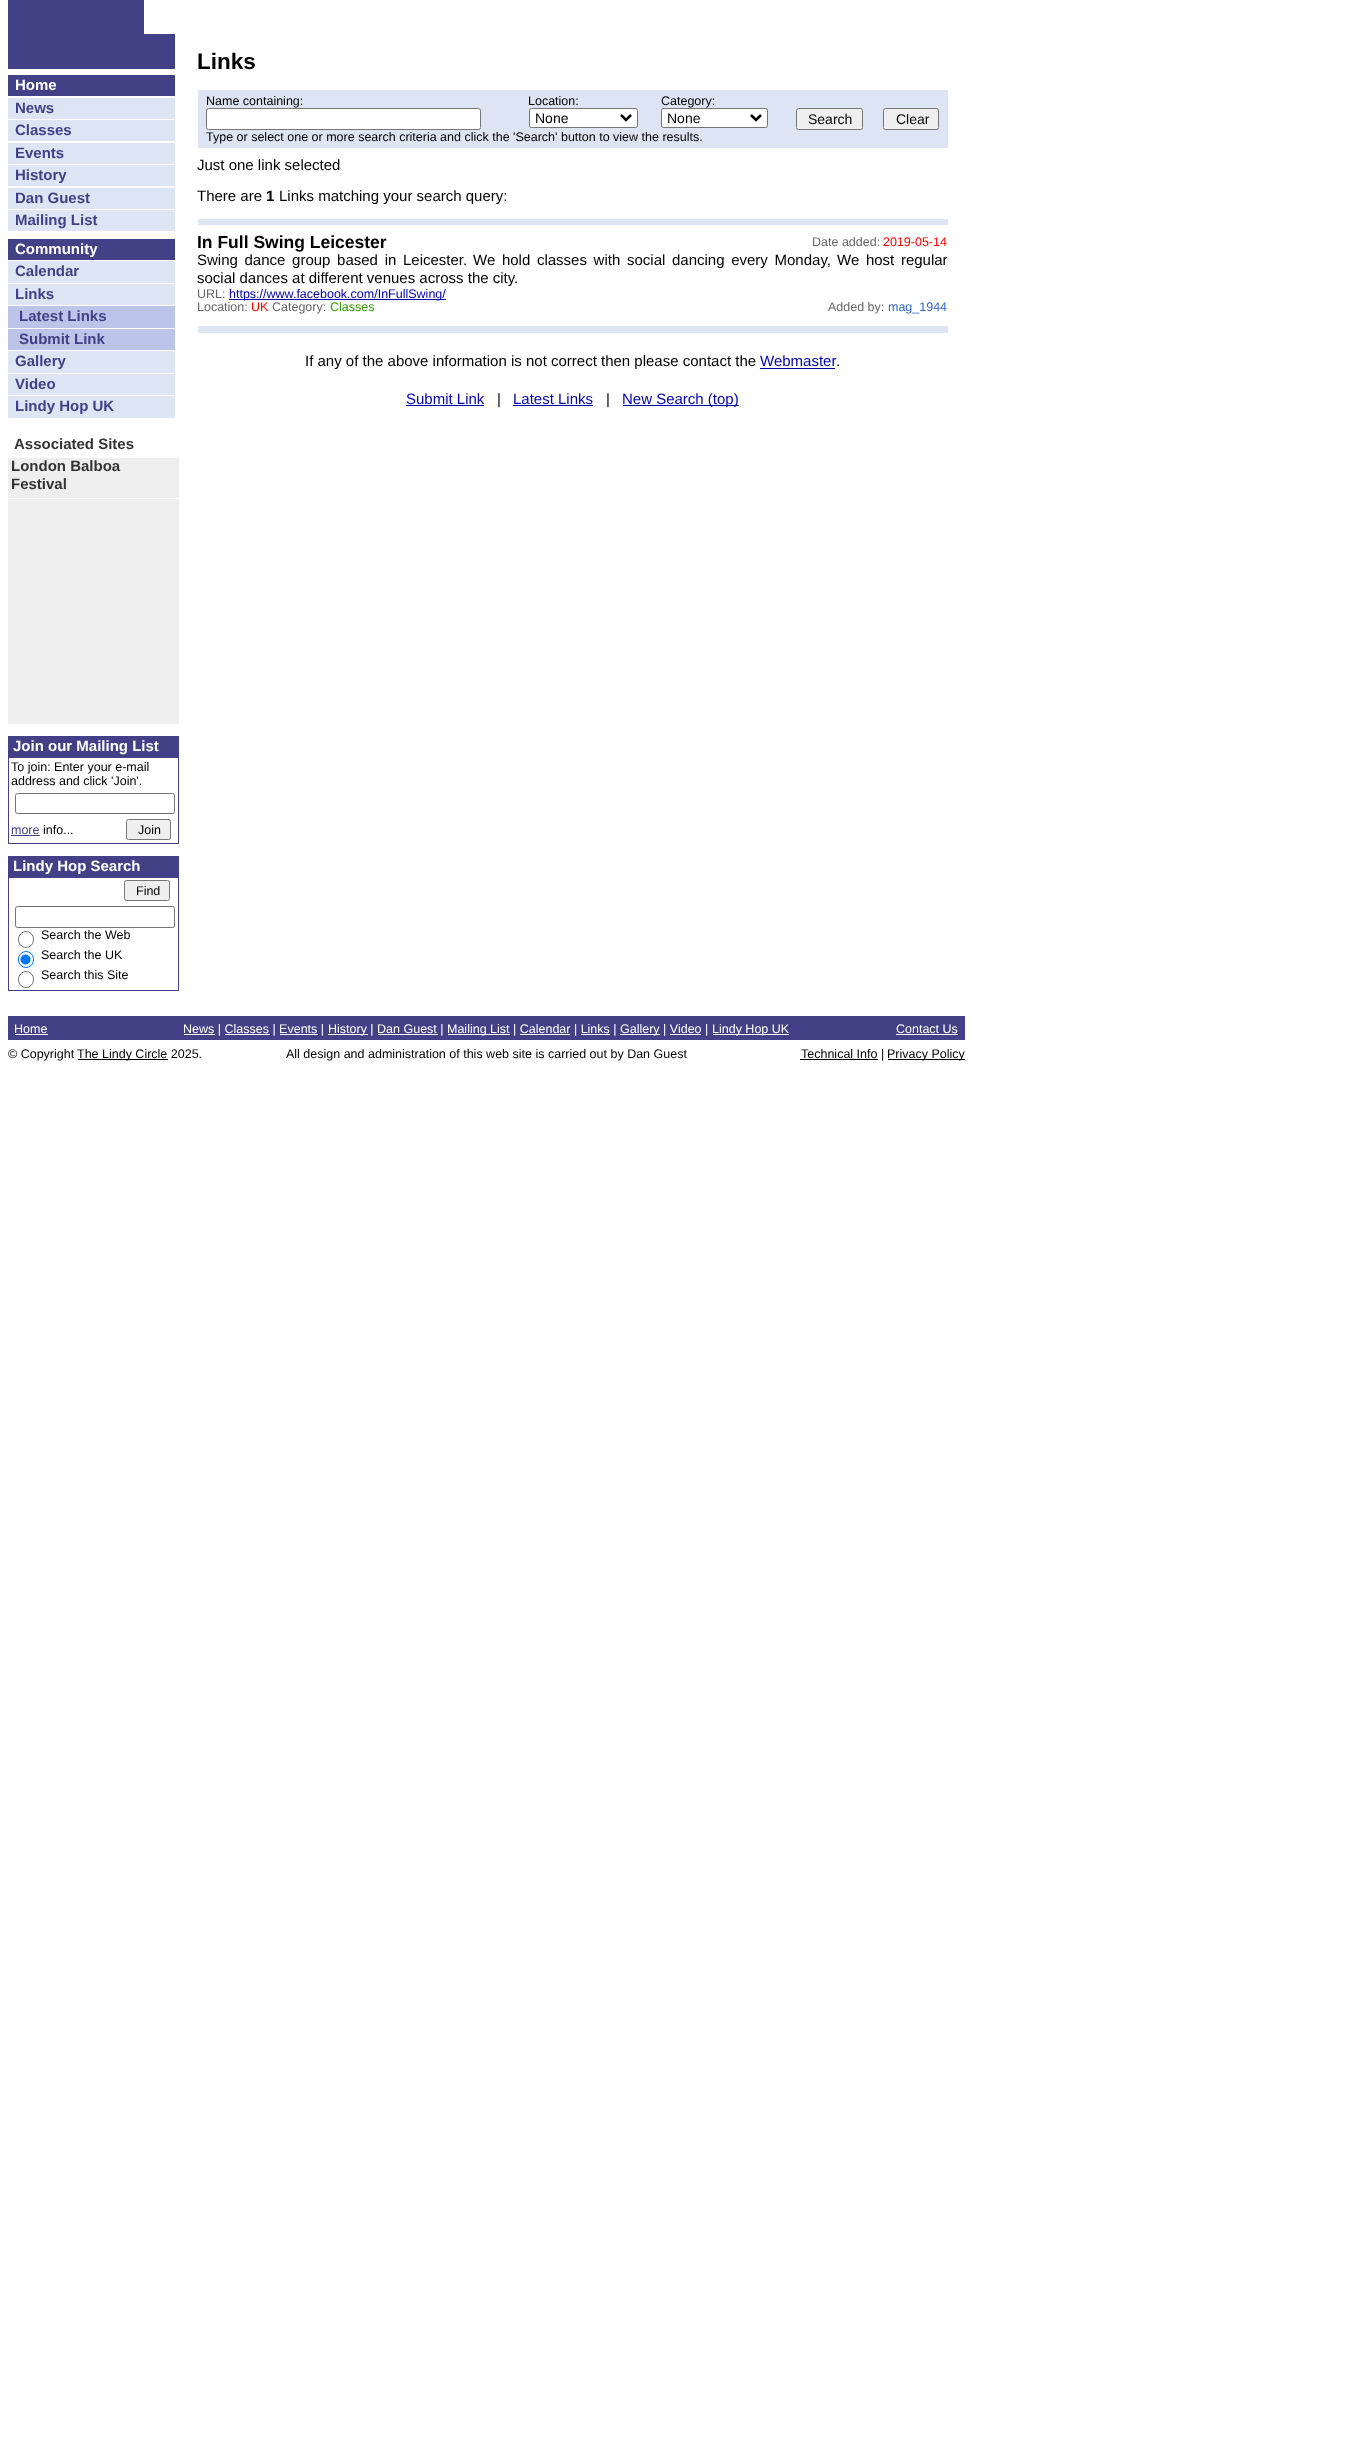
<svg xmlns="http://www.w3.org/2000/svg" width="1359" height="2450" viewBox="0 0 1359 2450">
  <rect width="100%" height="100%" fill="rgb(255,255,255)"/>
  <rect x="8" y="0" width="136" height="34" fill="rgb(66,65,135)"/>
  <rect x="8" y="34" width="167" height="35" fill="rgb(66,65,135)"/>
  <rect x="8" y="75" width="167" height="21" fill="rgb(66,65,135)"/>
  <text x="15" y="90" font-family="Liberation Sans" font-size="15" font-weight="bold" fill="rgb(255,255,255)">Home</text>
  <rect x="8" y="98" width="167" height="21" fill="rgb(221,228,243)"/>
  <text x="15" y="113" font-family="Liberation Sans" font-size="15" font-weight="bold" fill="rgb(66,65,135)">News</text>
  <rect x="8" y="120" width="167" height="21" fill="rgb(221,228,243)"/>
  <text x="15" y="135" font-family="Liberation Sans" font-size="15" font-weight="bold" fill="rgb(66,65,135)">Classes</text>
  <rect x="8" y="143" width="167" height="21" fill="rgb(221,228,243)"/>
  <text x="15" y="158" font-family="Liberation Sans" font-size="15" font-weight="bold" fill="rgb(66,65,135)">Events</text>
  <rect x="8" y="165" width="167" height="21" fill="rgb(221,228,243)"/>
  <text x="15" y="180" font-family="Liberation Sans" font-size="15" font-weight="bold" fill="rgb(66,65,135)">History</text>
  <rect x="8" y="188" width="167" height="21" fill="rgb(221,228,243)"/>
  <text x="15" y="203" font-family="Liberation Sans" font-size="15" font-weight="bold" fill="rgb(66,65,135)">Dan Guest</text>
  <rect x="8" y="210" width="167" height="21" fill="rgb(221,228,243)"/>
  <text x="15" y="225" font-family="Liberation Sans" font-size="15" font-weight="bold" fill="rgb(66,65,135)">Mailing List</text>
  <rect x="8" y="239" width="167" height="21" fill="rgb(66,65,135)"/>
  <text x="15" y="254" font-family="Liberation Sans" font-size="15" font-weight="bold" fill="rgb(255,255,255)">Community</text>
  <rect x="8" y="261" width="167" height="22" fill="rgb(221,228,243)"/>
  <text x="15" y="276" font-family="Liberation Sans" font-size="15" font-weight="bold" fill="rgb(66,65,135)">Calendar</text>
  <rect x="8" y="284" width="167" height="21" fill="rgb(221,228,243)"/>
  <text x="15" y="299" font-family="Liberation Sans" font-size="15" font-weight="bold" fill="rgb(66,65,135)">Links</text>
  <rect x="8" y="306" width="167" height="22" fill="rgb(189,196,233)"/>
  <text x="19" y="321" font-family="Liberation Sans" font-size="15" font-weight="bold" fill="rgb(66,65,135)">Latest Links</text>
  <rect x="8" y="329" width="167" height="21" fill="rgb(189,196,233)"/>
  <text x="19" y="344" font-family="Liberation Sans" font-size="15" font-weight="bold" fill="rgb(66,65,135)">Submit Link</text>
  <rect x="8" y="351" width="167" height="22" fill="rgb(221,228,243)"/>
  <text x="15" y="366" font-family="Liberation Sans" font-size="15" font-weight="bold" fill="rgb(66,65,135)">Gallery</text>
  <rect x="8" y="374" width="167" height="21" fill="rgb(221,228,243)"/>
  <text x="15" y="389" font-family="Liberation Sans" font-size="15" font-weight="bold" fill="rgb(66,65,135)">Video</text>
  <rect x="8" y="396" width="167" height="22" fill="rgb(221,228,243)"/>
  <text x="15" y="411" font-family="Liberation Sans" font-size="15" font-weight="bold" fill="rgb(66,65,135)">Lindy Hop UK</text>
  <text x="14" y="449" font-family="Liberation Sans" font-size="15" font-weight="bold" fill="rgb(51,51,51)">Associated Sites</text>
  <rect x="8" y="458" width="171" height="40" fill="rgb(238,238,238)"/>
  <g font-family="Liberation Sans" font-size="15" font-weight="bold" fill="rgb(51,51,51)">
    <text>
      <tspan x="11" y="471">London Balboa</tspan>
      <tspan x="11" y="489">Festival</tspan>
    </text>
  </g>
  <rect x="8" y="499" width="171" height="225" fill="rgb(238,238,238)"/>
  <rect x="8" y="736" width="171" height="108" fill="rgb(66,65,135)"/>
  <text x="13" y="751" font-family="Liberation Sans" font-size="15" font-weight="bold" fill="rgb(255,255,255)">Join our Mailing List</text>
  <rect x="9" y="758" width="169" height="85" fill="rgb(255,255,255)"/>
  <g font-family="Liberation Sans" font-size="12.5" fill="rgb(0,0,0)">
    <text>
      <tspan x="11" y="771">To join: Enter your e-mail</tspan>
      <tspan x="11" y="785">address and click 'Join'.</tspan>
    </text>
  </g>
  <rect x="15.5" y="793.5" width="159" height="20" rx="2" fill="none" stroke="rgb(118,118,118)"/>
  <text x="11" y="834" font-family="Liberation Sans" font-size="12.5" fill="rgb(66,65,135)">more</text>
  <rect x="11" y="835" width="29" height="1" fill="rgb(66,65,135)"/>
  <text x="43" y="834" font-family="Liberation Sans" font-size="12.5" fill="rgb(0,0,0)">info...</text>
  <rect x="126.5" y="819.5" width="44" height="20" rx="2" fill="rgb(239,239,239)" stroke="rgb(118,118,118)"/>
  <text x="138" y="834" font-family="Liberation Sans" font-size="12.5" fill="rgb(0,0,0)">Join</text>
  <rect x="8" y="856" width="171" height="135" fill="rgb(66,65,135)"/>
  <text x="13" y="871" font-family="Liberation Sans" font-size="15" font-weight="bold" fill="rgb(255,255,255)">Lindy Hop Search</text>
  <rect x="9" y="878" width="169" height="112" fill="rgb(255,255,255)"/>
  <rect x="124.5" y="880.5" width="45" height="20" rx="2" fill="rgb(239,239,239)" stroke="rgb(118,118,118)"/>
  <text x="136" y="895" font-family="Liberation Sans" font-size="12.5" fill="rgb(0,0,0)">Find</text>
  <rect x="15.5" y="906.5" width="159" height="21" rx="2" fill="none" stroke="rgb(118,118,118)"/>
  <rect x="18.5" y="931.5" width="15" height="16" rx="7.5" fill="none" stroke="rgb(118,118,118)"/>
  <text x="41" y="939" font-family="Liberation Sans" font-size="12.5" fill="rgb(0,0,0)">Search the Web</text>
  <rect x="18.5" y="951.5" width="15" height="16" rx="7.5" fill="none" stroke="rgb(0,117,255)"/>
  <circle cx="25.5" cy="959.5" r="5" fill="rgb(0,117,255)"/>
  <text x="41" y="959" font-family="Liberation Sans" font-size="12.5" fill="rgb(0,0,0)">Search the UK</text>
  <rect x="18.5" y="971.5" width="15" height="16" rx="7.5" fill="none" stroke="rgb(118,118,118)"/>
  <text x="41" y="979" font-family="Liberation Sans" font-size="12.5" fill="rgb(0,0,0)">Search this Site</text>
  <text x="197" y="69" font-family="Liberation Sans" font-size="22.5" font-weight="bold" fill="rgb(0,0,0)">Links</text>
  <rect x="198" y="90" width="750" height="58" fill="rgb(221,228,243)"/>
  <g font-family="Liberation Sans" font-size="12.5" fill="rgb(0,0,0)">
    <text x="206" y="105">Name containing:</text>
    <text x="528" y="105">Location:</text>
    <text x="661" y="105">Category:</text>
  </g>
  <rect x="206.5" y="108.5" width="274" height="21" rx="2" fill="rgb(255,255,255)" stroke="rgb(118,118,118)"/>
  <rect x="529.5" y="108.5" width="108" height="19" rx="2" fill="rgb(255,255,255)" stroke="rgb(118,118,118)"/>
  <path d="M621 115L626 120L631 115" fill="none" stroke="rgb(0,0,0)" stroke-width="2.5"/>
  <text x="535" y="123" font-family="Liberation Sans" font-size="14" fill="rgb(0,0,0)">None</text>
  <rect x="661.5" y="108.5" width="106" height="19" rx="2" fill="rgb(255,255,255)" stroke="rgb(118,118,118)"/>
  <path d="M751 115L756 120L761 115" fill="none" stroke="rgb(0,0,0)" stroke-width="2.5"/>
  <text x="667" y="123" font-family="Liberation Sans" font-size="14" fill="rgb(0,0,0)">None</text>
  <rect x="796.5" y="108.5" width="66" height="21" rx="2" fill="rgb(239,239,239)" stroke="rgb(118,118,118)"/>
  <text x="808" y="124" font-family="Liberation Sans" font-size="14" fill="rgb(0,0,0)">Search</text>
  <rect x="883.5" y="108.5" width="55" height="21" rx="2" fill="rgb(239,239,239)" stroke="rgb(118,118,118)"/>
  <text x="896" y="124" font-family="Liberation Sans" font-size="14" fill="rgb(0,0,0)">Clear</text>
  <text x="206" y="141" font-family="Liberation Sans" font-size="12.5" fill="rgb(0,0,0)">Type or select one or more search criteria and click the 'Search' button to view the results.</text>
  <g font-family="Liberation Sans" font-size="15" fill="rgb(0,0,0)">
    <text x="197" y="170">Just one link selected</text>
    <text x="197" y="201">There are</text>
  </g>
  <text x="266" y="201" font-family="Liberation Sans" font-size="15" font-weight="bold" fill="rgb(0,0,0)">1</text>
  <text x="279" y="201" font-family="Liberation Sans" font-size="15" fill="rgb(0,0,0)">Links matching your search query:</text>
  <rect x="198" y="219" width="750" height="6" fill="rgb(221,228,243)"/>
  <text x="197" y="248" font-family="Liberation Sans" font-size="17.5" font-weight="bold" fill="rgb(0,0,0)">In Full Swing Leicester</text>
  <text x="812" y="246" font-family="Liberation Sans" font-size="12.5" fill="rgb(102,102,102)">Date added:</text>
  <text x="883" y="246" font-family="Liberation Sans" font-size="12.5" fill="rgb(255,0,0)">2019-05-14</text>
  <g font-family="Liberation Sans" font-size="15" fill="rgb(0,0,0)">
    <text x="197" y="265" word-spacing="2.5">Swing dance group based in Leicester.</text>
    <text x="473" y="265" word-spacing="2.5">We hold classes with social dancing every Monday,</text>
    <text x="837" y="265" word-spacing="2.5">We host regular</text>
    <text x="197" y="283">social dances at different venues across the city.</text>
  </g>
  <text x="197" y="298" font-family="Liberation Sans" font-size="12.5" fill="rgb(102,102,102)">URL:</text>
  <rect x="229" y="299" width="217" height="1" fill="rgb(0,0,175)"/>
  <text x="229" y="298" font-family="Liberation Sans" font-size="12.5" fill="rgb(0,0,175)">https://www.facebook.com/InFullSwing/</text>
  <text x="197" y="311" font-family="Liberation Sans" font-size="12.5" fill="rgb(102,102,102)">Location:</text>
  <text x="251" y="311" font-family="Liberation Sans" font-size="12.5" fill="rgb(255,0,0)">UK</text>
  <text x="272" y="311" font-family="Liberation Sans" font-size="12.5" fill="rgb(102,102,102)">Category:</text>
  <text x="330" y="311" font-family="Liberation Sans" font-size="12.5" fill="rgb(51,153,0)">Classes</text>
  <text x="828" y="311" font-family="Liberation Sans" font-size="12.5" fill="rgb(102,102,102)">Added by:</text>
  <text x="888" y="311" font-family="Liberation Sans" font-size="12.5" fill="rgb(51,102,204)">mag_1944</text>
  <rect x="198" y="326" width="750" height="7" fill="rgb(221,228,243)"/>
  <text x="305" y="366" font-family="Liberation Sans" font-size="15" fill="rgb(0,0,0)">If any of the above information is not correct then please contact the</text>
  <text x="760" y="366" font-family="Liberation Sans" font-size="15" fill="rgb(0,0,175)">Webmaster</text>
  <rect x="760" y="368" width="75" height="1" fill="rgb(0,0,175)"/>
  <text x="836" y="366" font-family="Liberation Sans" font-size="15" fill="rgb(0,0,0)">.</text>
  <text x="406" y="404" font-family="Liberation Sans" font-size="15" fill="rgb(0,0,175)">Submit Link</text>
  <rect x="406" y="405" width="78" height="1" fill="rgb(0,0,175)"/>
  <text x="497" y="404" font-family="Liberation Sans" font-size="15" fill="rgb(0,0,0)">|</text>
  <text x="513" y="404" font-family="Liberation Sans" font-size="15" fill="rgb(0,0,175)">Latest Links</text>
  <rect x="513" y="405" width="80" height="1" fill="rgb(0,0,175)"/>
  <text x="606" y="404" font-family="Liberation Sans" font-size="15" fill="rgb(0,0,0)">|</text>
  <rect x="623" y="405" width="116" height="1" fill="rgb(0,0,175)"/>
  <text x="622" y="404" font-family="Liberation Sans" font-size="15" fill="rgb(0,0,175)">New Search (top)</text>
  <rect x="8" y="1016" width="957" height="24" fill="rgb(66,65,135)"/>
  <text x="14" y="1033" font-family="Liberation Sans" font-size="12.5" fill="rgb(255,255,255)">Home</text>
  <rect x="15" y="1034" width="33" height="1" fill="rgb(255,255,255)"/>
  <rect x="184" y="1034" width="31" height="1" fill="rgb(255,255,255)"/>
  <text x="183" y="1033" font-family="Liberation Sans" font-size="12.5" fill="rgb(255,255,255)">News | Classes | Events |</text>
  <rect x="328" y="1034" width="40" height="1" fill="rgb(255,255,255)"/>
  <text x="328" y="1033" font-family="Liberation Sans" font-size="12.5" fill="rgb(255,255,255)">History | Dan Guest |</text>
  <rect x="448" y="1034" width="62" height="1" fill="rgb(255,255,255)"/>
  <text x="447" y="1033" font-family="Liberation Sans" font-size="12.5" fill="rgb(255,255,255)">Mailing List | Calendar | Links |</text>
  <rect x="620" y="1034" width="40" height="1" fill="rgb(255,255,255)"/>
  <text x="620" y="1033" font-family="Liberation Sans" font-size="12.5" fill="rgb(255,255,255)">Gallery | Video |</text>
  <rect x="713" y="1034" width="76" height="1" fill="rgb(255,255,255)"/>
  <text x="712" y="1033" font-family="Liberation Sans" font-size="12.5" fill="rgb(255,255,255)">Lindy Hop UK</text>
  <rect x="225" y="1034" width="45" height="1" fill="rgb(255,255,255)"/>
  <rect x="280" y="1034" width="38" height="1" fill="rgb(255,255,255)"/>
  <rect x="378" y="1034" width="60" height="1" fill="rgb(255,255,255)"/>
  <rect x="520" y="1034" width="50" height="1" fill="rgb(255,255,255)"/>
  <rect x="581" y="1034" width="29" height="1" fill="rgb(255,255,255)"/>
  <rect x="670" y="1034" width="31" height="1" fill="rgb(255,255,255)"/>
  <text x="896" y="1033" font-family="Liberation Sans" font-size="12.5" fill="rgb(255,255,255)">Contact Us</text>
  <rect x="896" y="1034" width="62" height="1" fill="rgb(255,255,255)"/>
  <text x="8" y="1058" font-family="Liberation Sans" font-size="12.5" fill="rgb(0,0,0)">© Copyright</text>
  <rect x="78" y="1059" width="90" height="1" fill="rgb(0,0,0)"/>
  <g font-family="Liberation Sans" font-size="12.5" fill="rgb(0,0,0)">
    <text x="77" y="1058">The Lindy Circle 2025.</text>
    <text x="286" y="1058">All design and administration of this web site is carried out by Dan Guest</text>
  </g>
  <rect x="800" y="1059" width="78" height="1" fill="rgb(0,0,0)"/>
  <text x="801" y="1058" font-family="Liberation Sans" font-size="12.5" fill="rgb(0,0,0)">Technical Info |</text>
  <rect x="888" y="1059" width="77" height="1" fill="rgb(0,0,0)"/>
  <text x="887" y="1058" font-family="Liberation Sans" font-size="12.5" fill="rgb(0,0,0)">Privacy Policy</text>
</svg>
